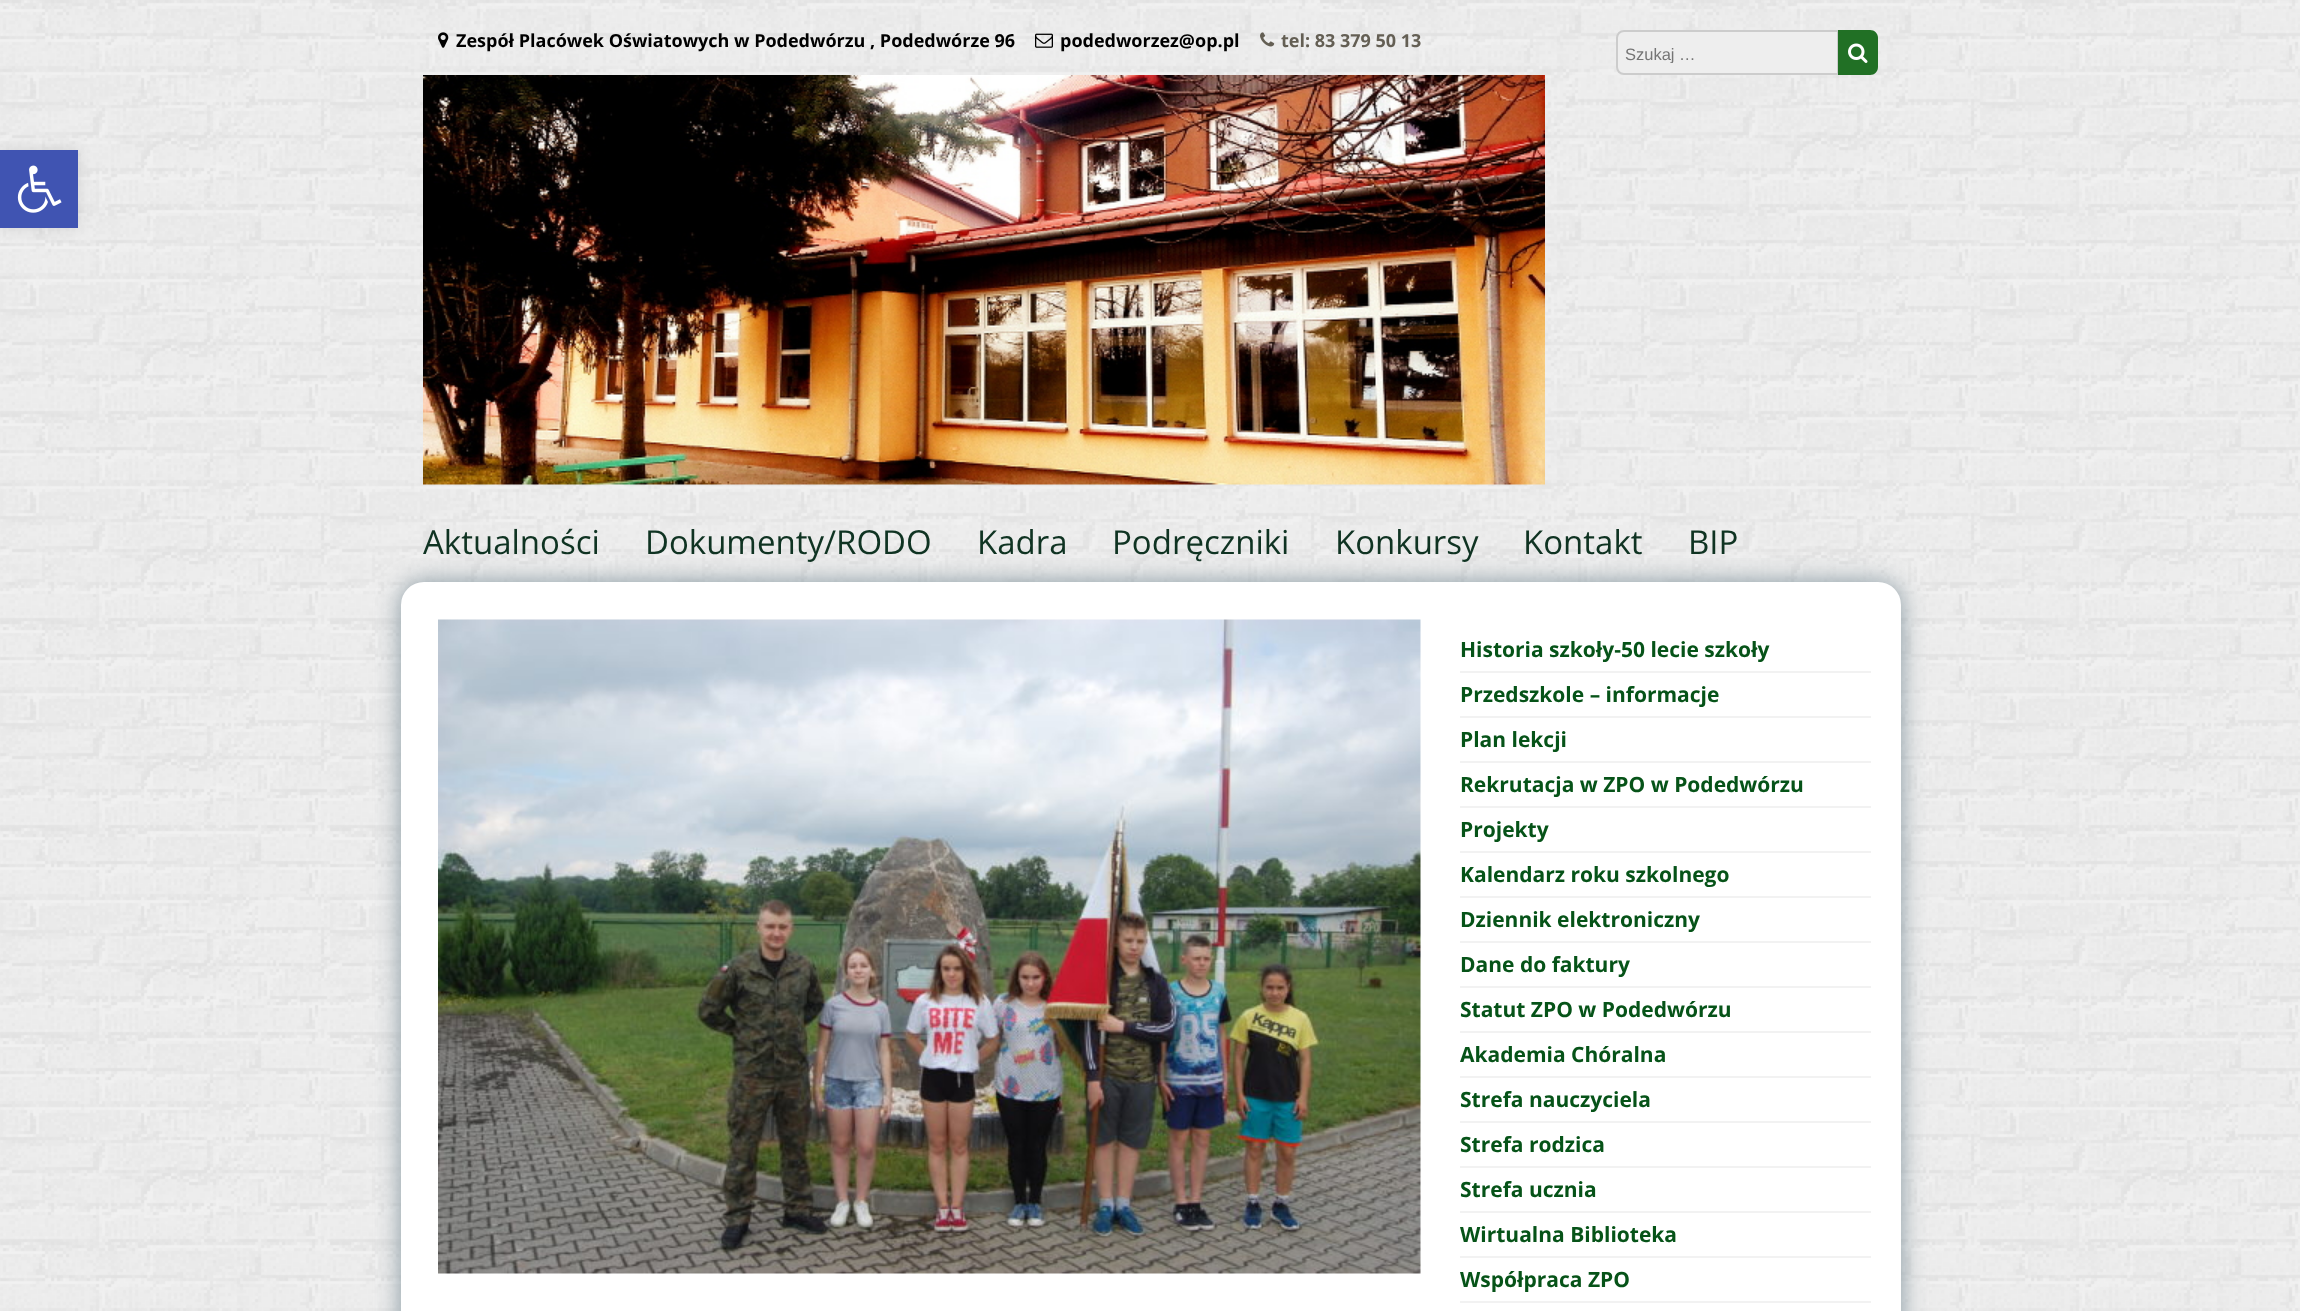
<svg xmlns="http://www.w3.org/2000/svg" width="2300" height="1311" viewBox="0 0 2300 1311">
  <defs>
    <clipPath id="clip1"><rect x="1625" y="45" width="207" height="18"/></clipPath>
  </defs>
  <rect width="100%" height="100%" fill="rgb(255,255,255)"/>
  <image x="0" y="0" width="2300" height="1311" href="pic1.png"/>
  <rect x="0" y="150" width="78" height="78" fill="rgba(0,0,0,0.1)" filter="blur(7.5px)"/>
  <rect x="0" y="150" width="78" height="78" fill="rgb(64,84,178)"/>
  <image x="17" y="165" width="45" height="48" href="pic2.png"/>
  <image x="438" y="32" width="11" height="16" href="pic3.png"/>
  <text x="456" y="47" font-family="Open Sans" font-size="18" font-weight="bold" fill="rgb(0,0,0)">Zespół Placówek Oświatowych w Podedwórzu , Podedwórze 96</text>
  <image x="1035" y="33" width="18" height="15" href="pic4.png"/>
  <text x="1060" y="47" font-family="Open Sans" font-size="18" font-weight="bold" fill="rgb(0,0,0)">podedworzez@op.pl</text>
  <image x="1260" y="32" width="15" height="15" href="pic5.png"/>
  <text x="1281" y="47" font-family="Open Sans" font-size="18" font-weight="bold" fill="rgb(100,95,84)">tel: 83 379 50 13</text>
  <path d="M1624 31H1838V74H1624C1620 74 1617 71 1617 67V38C1617 34 1620 31 1624 31Z" fill="rgb(238,238,238)" stroke="rgb(204,204,204)" stroke-width="2"/>
  <g clip-path="url(#clip1)">
    <text x="1625" y="60" font-family="Liberation Sans" font-size="16.5" fill="rgb(117,117,117)">Szukaj …</text>
  </g>
  <path d="M1838 30H1870C1874.5 30 1878 33.5 1878 38V67C1878 71.5 1874.5 75 1870 75H1838Z" fill="rgb(33,112,37)"/>
  <image x="1848" y="43" width="20" height="20" href="pic6.png"/>
  <image x="423" y="75" width="1122" height="410" href="pic7.png"/>
  <rect x="401" y="582" width="1500" height="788" rx="23" fill="rgb(133,150,159)" filter="blur(12px)"/>
  <g font-family="Open Sans" font-size="33" fill="rgb(15,51,34)">
    <text x="423" y="554">Aktualności</text>
    <text x="645" y="554">Dokumenty/RODO</text>
    <text x="977" y="554">Kadra</text>
    <text x="1112" y="554">Podręczniki</text>
    <text x="1335" y="554">Konkursy</text>
    <text x="1523" y="554">Kontakt</text>
    <text x="1688" y="554">BIP</text>
  </g>
  <rect x="408.5" y="589.5" width="1485" height="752" rx="15.5" fill="rgb(255,255,255)" stroke="rgb(255,255,255)" stroke-width="15"/>
  <image x="438" y="619" width="983" height="655" href="pic8.png"/>
  <rect x="1460" y="671" width="411" height="2" fill="rgb(242,242,242)"/>
  <text x="1460" y="657" font-family="Open Sans" font-size="21" font-weight="bold" fill="rgb(6,83,24)">Historia szkoły-50 lecie szkoły</text>
  <rect x="1460" y="716" width="411" height="2" fill="rgb(242,242,242)"/>
  <text x="1460" y="702" font-family="Open Sans" font-size="21" font-weight="bold" fill="rgb(6,83,24)">Przedszkole – informacje</text>
  <rect x="1460" y="761" width="411" height="2" fill="rgb(242,242,242)"/>
  <text x="1460" y="747" font-family="Open Sans" font-size="21" font-weight="bold" fill="rgb(6,83,24)">Plan lekcji</text>
  <rect x="1460" y="806" width="411" height="2" fill="rgb(242,242,242)"/>
  <text x="1460" y="792" font-family="Open Sans" font-size="21" font-weight="bold" fill="rgb(6,83,24)">Rekrutacja w ZPO w Podedwórzu</text>
  <rect x="1460" y="851" width="411" height="2" fill="rgb(242,242,242)"/>
  <text x="1460" y="837" font-family="Open Sans" font-size="21" font-weight="bold" fill="rgb(6,83,24)">Projekty</text>
  <rect x="1460" y="896" width="411" height="2" fill="rgb(242,242,242)"/>
  <text x="1460" y="882" font-family="Open Sans" font-size="21" font-weight="bold" fill="rgb(6,83,24)">Kalendarz roku szkolnego</text>
  <rect x="1460" y="941" width="411" height="2" fill="rgb(242,242,242)"/>
  <text x="1460" y="927" font-family="Open Sans" font-size="21" font-weight="bold" fill="rgb(6,83,24)">Dziennik elektroniczny</text>
  <rect x="1460" y="986" width="411" height="2" fill="rgb(242,242,242)"/>
  <text x="1460" y="972" font-family="Open Sans" font-size="21" font-weight="bold" fill="rgb(6,83,24)">Dane do faktury</text>
  <rect x="1460" y="1031" width="411" height="2" fill="rgb(242,242,242)"/>
  <text x="1460" y="1017" font-family="Open Sans" font-size="21" font-weight="bold" fill="rgb(6,83,24)">Statut ZPO w Podedwórzu</text>
  <rect x="1460" y="1076" width="411" height="2" fill="rgb(242,242,242)"/>
  <text x="1460" y="1062" font-family="Open Sans" font-size="21" font-weight="bold" fill="rgb(6,83,24)">Akademia Chóralna</text>
  <rect x="1460" y="1121" width="411" height="2" fill="rgb(242,242,242)"/>
  <text x="1460" y="1107" font-family="Open Sans" font-size="21" font-weight="bold" fill="rgb(6,83,24)">Strefa nauczyciela</text>
  <rect x="1460" y="1166" width="411" height="2" fill="rgb(242,242,242)"/>
  <text x="1460" y="1152" font-family="Open Sans" font-size="21" font-weight="bold" fill="rgb(6,83,24)">Strefa rodzica</text>
  <rect x="1460" y="1211" width="411" height="2" fill="rgb(242,242,242)"/>
  <text x="1460" y="1197" font-family="Open Sans" font-size="21" font-weight="bold" fill="rgb(6,83,24)">Strefa ucznia</text>
  <rect x="1460" y="1256" width="411" height="2" fill="rgb(242,242,242)"/>
  <text x="1460" y="1242" font-family="Open Sans" font-size="21" font-weight="bold" fill="rgb(6,83,24)">Wirtualna Biblioteka</text>
  <rect x="1460" y="1301" width="411" height="2" fill="rgb(242,242,242)"/>
  <text x="1460" y="1287" font-family="Open Sans" font-size="21" font-weight="bold" fill="rgb(6,83,24)">Współpraca ZPO</text>
</svg>
